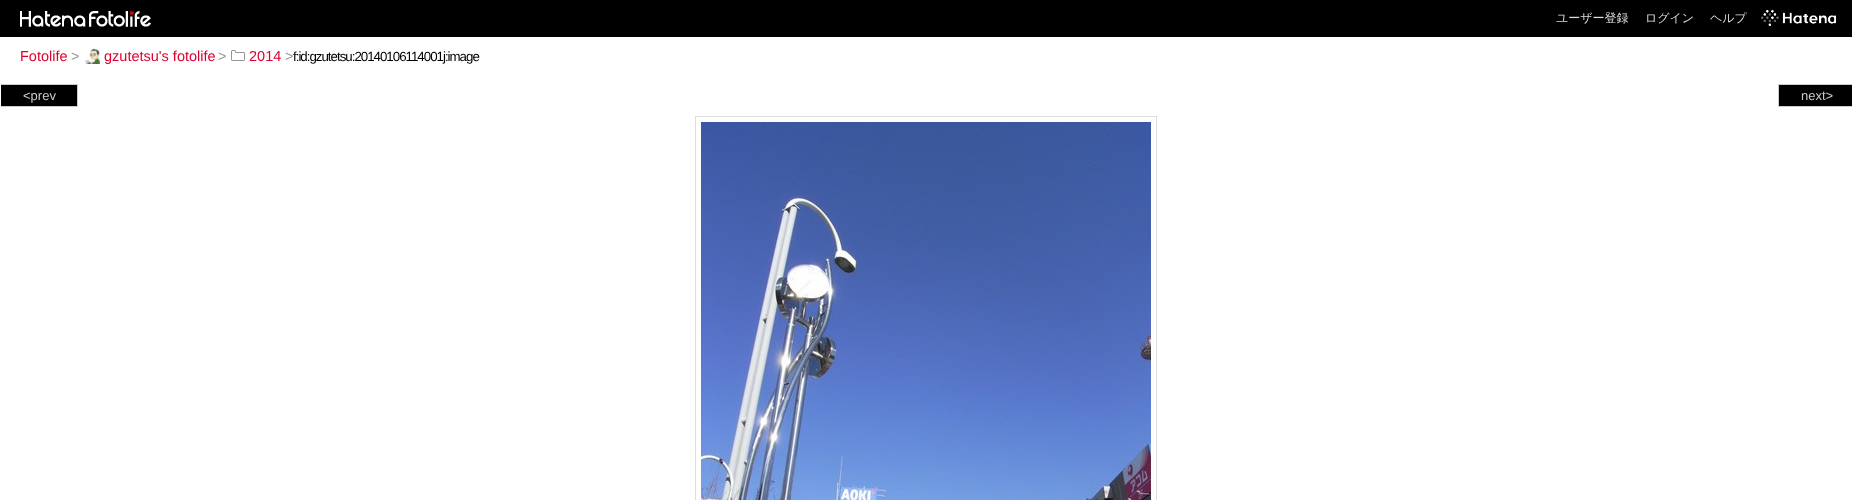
<svg xmlns="http://www.w3.org/2000/svg" width="1852" height="500" viewBox="0 0 1852 500">
  <rect width="100%" height="100%" fill="rgb(255,255,255)"/>
  <rect x="0" y="0" width="1852" height="37" fill="rgb(0,0,0)"/>
  <image x="20" y="11" width="66" height="16" href="pic1.png"/>
  <image x="89" y="11" width="62" height="16" href="pic2.png"/>
  <g font-family="WenQuanYi Zen Hei" font-size="12" font-weight="500" fill="rgb(221,221,221)">
    <text x="1556" y="22">ユーザー登録</text>
    <text x="1645" y="22">ログイン</text>
    <text x="1710" y="22">ヘルプ</text>
  </g>
  <image x="1761" y="10" width="75" height="16" href="pic3.png"/>
  <text x="20" y="61" font-family="Liberation Sans" font-size="14.5" fill="rgb(222,0,47)">Fotolife</text>
  <text x="71" y="61" font-family="Liberation Sans" font-size="14.5" fill="rgb(153,153,153)">&gt;</text>
  <image x="85" y="48" width="15" height="16" href="pic4.png"/>
  <text x="104" y="61" font-family="Liberation Sans" font-size="14.5" fill="rgb(222,0,47)">gzutetsu's fotolife</text>
  <text x="218" y="61" font-family="Liberation Sans" font-size="14.5" fill="rgb(153,153,153)">&gt;</text>
  <image x="231" y="50" width="14" height="11" href="pic5.png"/>
  <text x="249" y="61" font-family="Liberation Sans" font-size="14.5" fill="rgb(222,0,47)">2014</text>
  <text x="285" y="61" font-family="Liberation Sans" font-size="14.5" fill="rgb(153,153,153)">&gt;</text>
  <text x="293" y="61" font-family="Liberation Sans" font-size="13.3" letter-spacing="-1" fill="rgb(0,0,0)">f:id:gzutetsu:20140106114001j:image</text>
  <rect x="1" y="85" width="76" height="21" fill="rgb(0,0,0)"/>
  <rect x="1" y="84" width="77" height="1" fill="rgb(204,204,204)"/>
  <rect x="77" y="84" width="1" height="23" fill="rgb(204,204,204)"/>
  <rect x="1" y="106" width="77" height="1" fill="rgb(204,204,204)"/>
  <text x="23" y="100" font-family="Liberation Sans" font-size="13" fill="rgb(204,204,204)">&lt;prev</text>
  <rect x="1779" y="85" width="73" height="21" fill="rgb(0,0,0)"/>
  <rect x="1778" y="84" width="74" height="1" fill="rgb(204,204,204)"/>
  <rect x="1778" y="106" width="74" height="1" fill="rgb(204,204,204)"/>
  <rect x="1778" y="84" width="1" height="23" fill="rgb(204,204,204)"/>
  <text x="1801" y="100" font-family="Liberation Sans" font-size="13" fill="rgb(204,204,204)">next&gt;</text>
  <rect x="695.5" y="116.5" width="461" height="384" fill="none" stroke="rgb(222,222,222)"/>
  <image x="701" y="122" width="450" height="378" href="pic6.png"/>
</svg>
